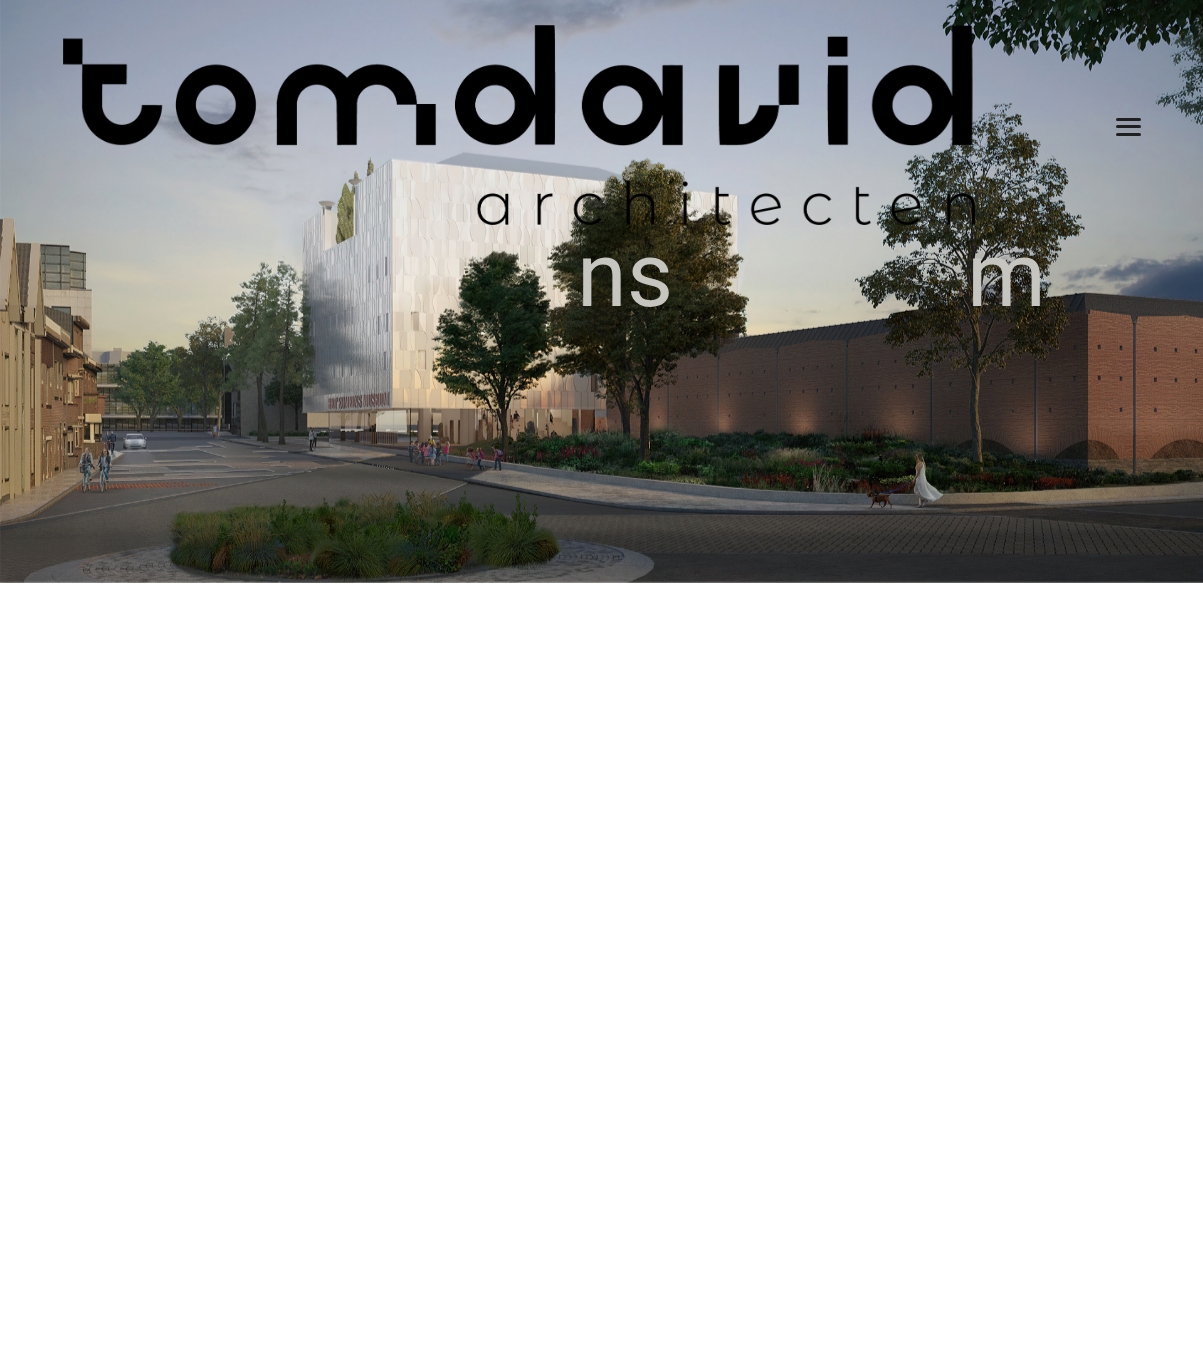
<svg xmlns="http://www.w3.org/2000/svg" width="1203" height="1345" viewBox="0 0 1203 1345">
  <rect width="100%" height="100%" fill="rgb(255,255,255)"/>
  <image x="0" y="0" width="1203" height="583" href="pic2.png"/>
  <image x="63" y="25" width="912" height="200" href="pic1.png"/>
  <rect x="1116" y="118" width="25" height="3" rx="1.5" fill="rgb(31,31,31)"/>
  <rect x="1116" y="125" width="25" height="3" rx="1.5" fill="rgb(31,31,31)"/>
  <rect x="1116" y="133" width="25" height="3" rx="1.5" fill="rgb(31,31,31)"/>
  <g font-family="Roboto" font-size="90" fill="rgb(198,197,192)">
    <text x="577" y="306">ns</text>
    <text x="967" y="306">m</text>
  </g>
</svg>
